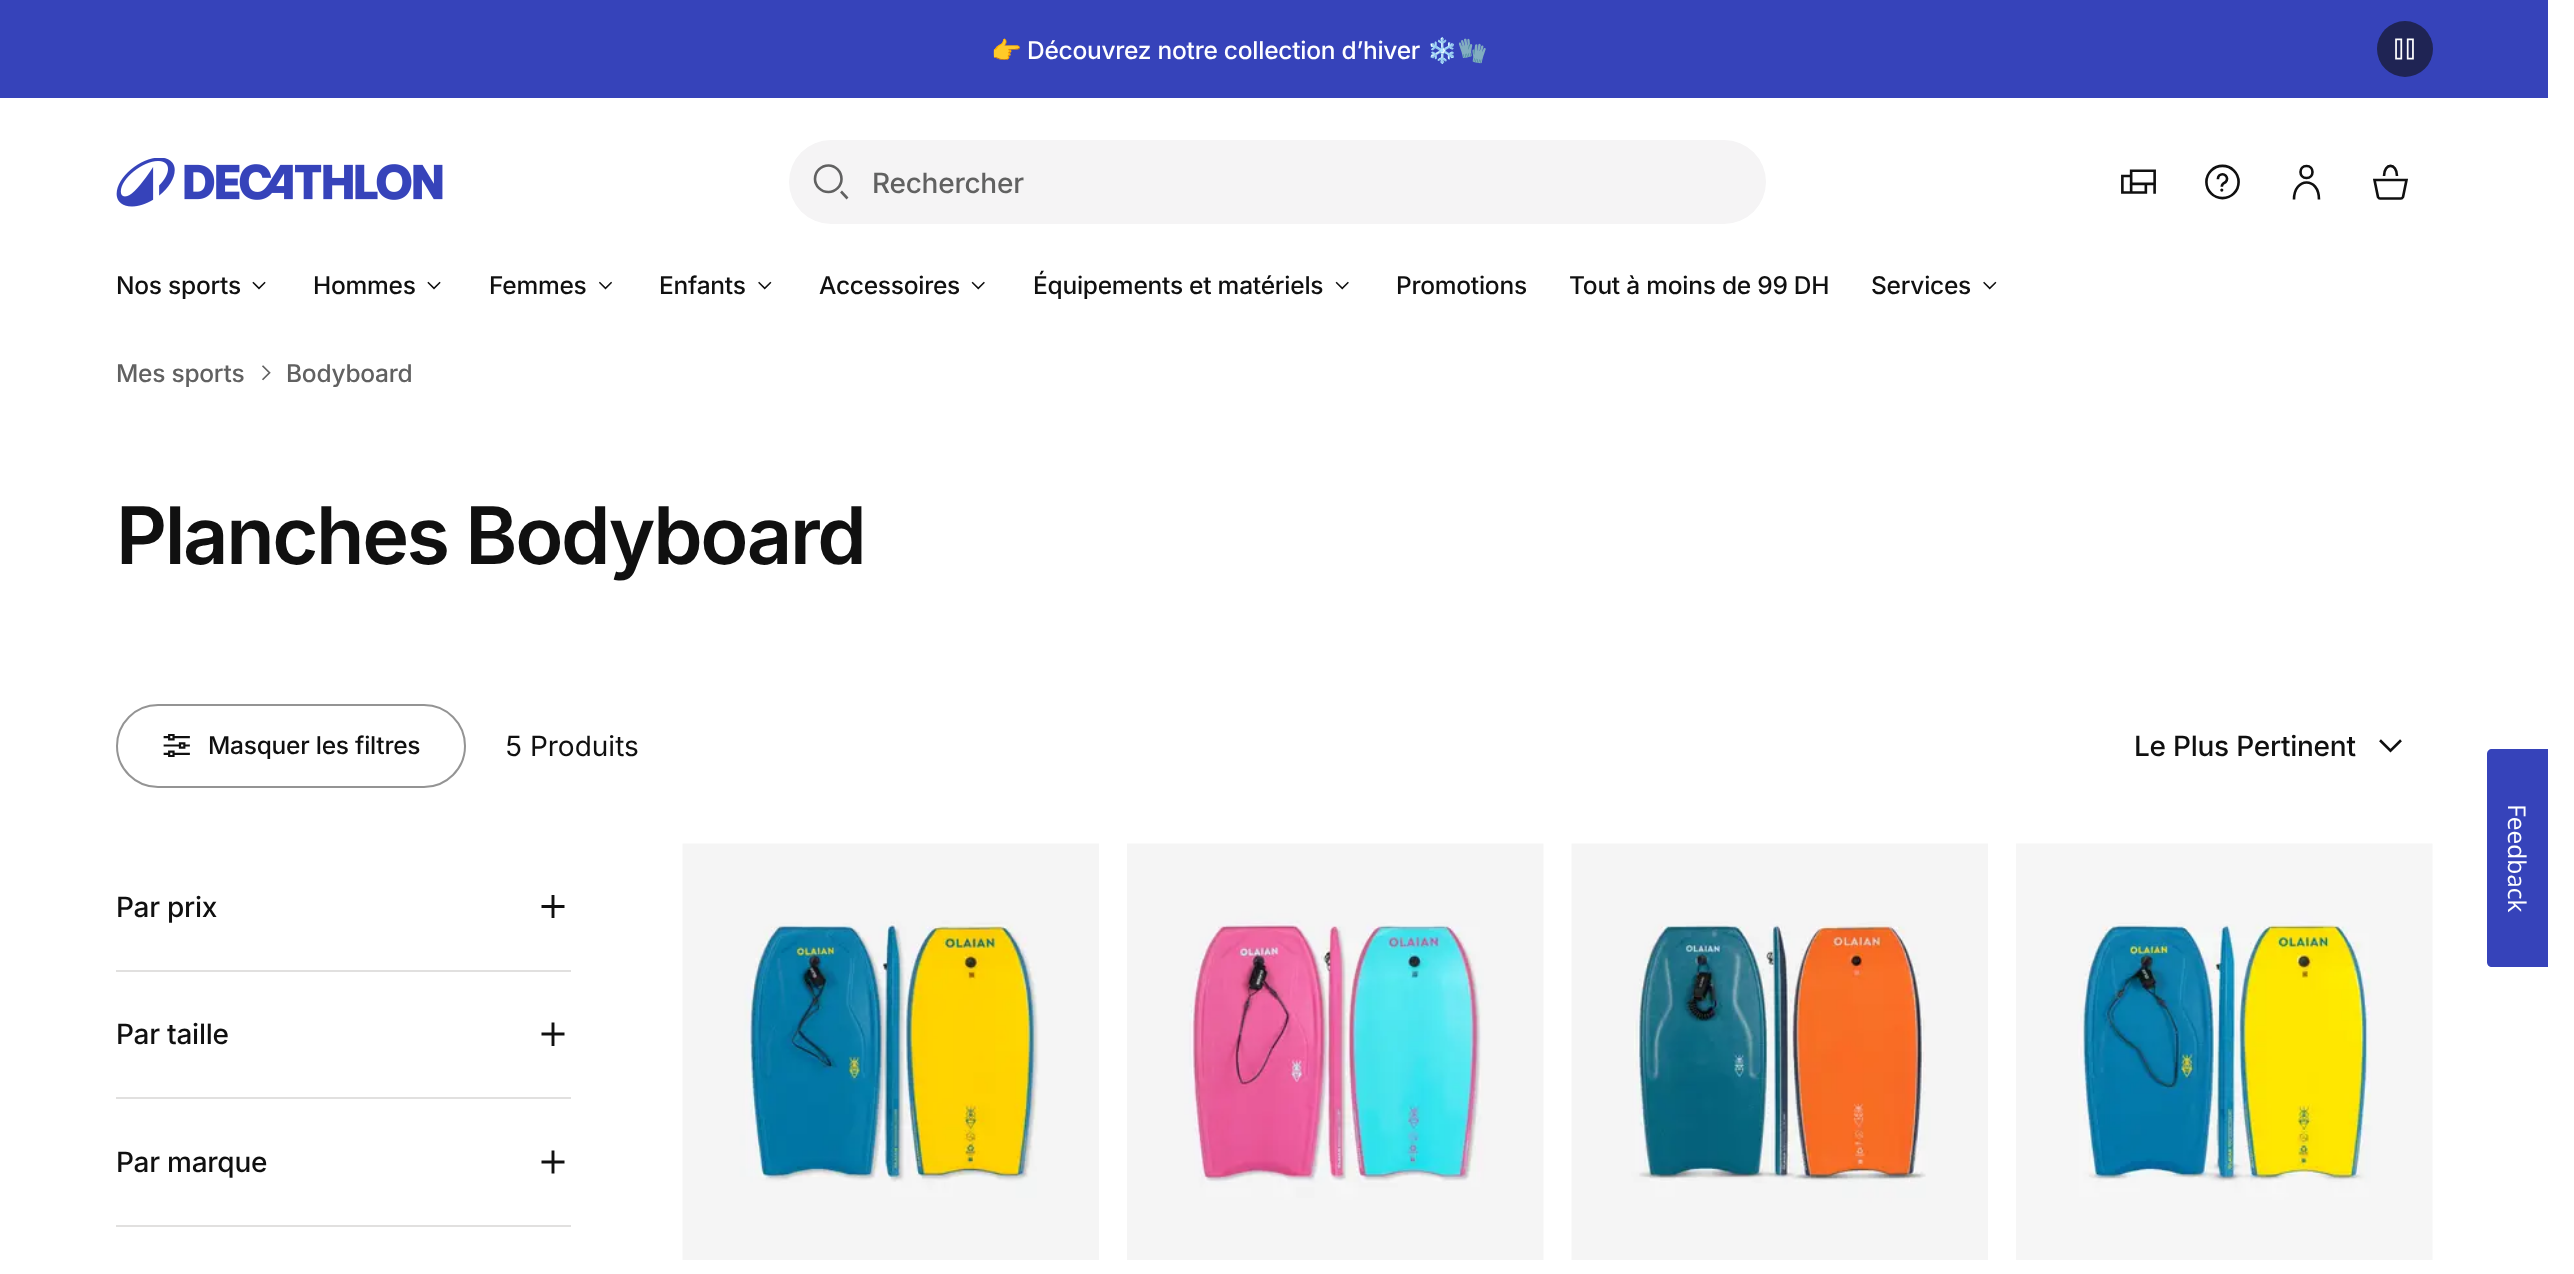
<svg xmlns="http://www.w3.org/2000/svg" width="2574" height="1274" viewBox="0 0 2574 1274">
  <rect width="100%" height="100%" fill="rgb(255,255,255)"/>
  <rect x="0" y="0" width="2548" height="98" fill="rgb(54,67,186)"/>
  <text x="991" y="59" font-family="Noto Color Emoji" font-size="24.5" letter-spacing="-0.25" fill="rgb(255,255,255)">👉</text>
  <text x="1027" y="59" font-family="Inter" font-size="24.5" font-weight="500" letter-spacing="-0.25" fill="rgb(255,255,255)">Découvrez notre collection d’hiver</text>
  <text x="1427" y="59" font-family="Noto Color Emoji" font-size="24.5" letter-spacing="-0.25" fill="rgb(255,255,255)">❄️🧤</text>
  <circle cx="2405" cy="49" r="28" fill="rgb(31,36,84)"/>
  <image x="2395" y="38" width="19" height="22" href="pic1.png"/>
  <image x="116" y="158" width="327" height="49" href="pic2.png"/>
  <rect x="789" y="140" width="977" height="84" rx="42" fill="rgb(245,244,245)"/>
  <path d="M847.5 198.5L841 191.5M841.5 179C841.5 186 835.5 192 828.5 192C821 192 815 186 815 179C815 171.5 821 165.5 828.5 165.5C835.5 165.5 841.5 171.5 841.5 179Z" fill="none" stroke="rgb(97,97,97)" stroke-width="2.6"/>
  <text x="872" y="193" font-family="Inter" font-size="28" font-weight="500" letter-spacing="-0.25" fill="rgb(97,97,97)">Rechercher</text>
  <image x="2121" y="169" width="35" height="25" href="pic3.png"/>
  <image x="2205" y="164" width="35" height="36" href="pic4.png"/>
  <path d="M2294 199.5C2294 177 2319 176.5 2319 199.5M2306.5 166C2298.5 166 2298.5 178 2306.5 178C2314.5 178 2314.5 166 2306.5 166Z" fill="none" stroke="rgb(16,16,16)" stroke-width="2.6"/>
  <path d="M2384 176C2384 162.5 2397 162.5 2397 176M2378 197C2378.5 198 2379 198.5 2380 198.5H2401C2402 198.5 2402.5 198 2403 197L2406.5 180H2374.5Z" fill="none" stroke="rgb(16,16,16)" stroke-width="2.6"/>
  <text x="116" y="294" font-family="Inter" font-size="24.5" font-weight="500" letter-spacing="-0.25" fill="rgb(16,16,16)">Nos sports</text>
  <image x="252" y="281" width="14" height="9" href="pic5.png"/>
  <text x="313" y="294" font-family="Inter" font-size="24.5" font-weight="500" letter-spacing="-0.25" fill="rgb(16,16,16)">Hommes</text>
  <image x="427" y="281" width="14" height="9" href="pic6.png"/>
  <text x="489" y="294" font-family="Inter" font-size="24.5" font-weight="500" letter-spacing="-0.25" fill="rgb(16,16,16)">Femmes</text>
  <image x="599" y="281" width="13" height="9" href="pic7.png"/>
  <text x="659" y="294" font-family="Inter" font-size="24.5" font-weight="500" letter-spacing="-0.25" fill="rgb(16,16,16)">Enfants</text>
  <image x="758" y="281" width="14" height="9" href="pic8.png"/>
  <text x="819" y="294" font-family="Inter" font-size="24.5" font-weight="500" letter-spacing="-0.25" fill="rgb(16,16,16)">Accessoires</text>
  <image x="971" y="281" width="14" height="9" href="pic9.png"/>
  <text x="1033" y="294" font-family="Inter" font-size="24.5" font-weight="500" letter-spacing="-0.25" fill="rgb(16,16,16)">Équipements et matériels</text>
  <image x="1335" y="281" width="14" height="9" href="pic9.png"/>
  <g font-family="Inter" font-size="24.5" font-weight="500" letter-spacing="-0.25" fill="rgb(16,16,16)">
    <text x="1396" y="294">Promotions</text>
    <text x="1569" y="294">Tout à moins de 99 DH</text>
    <text x="1871" y="294">Services</text>
  </g>
  <image x="1983" y="281" width="14" height="9" href="pic10.png"/>
  <text x="116" y="382" font-family="Inter" font-size="24.5" font-weight="500" letter-spacing="-0.25" fill="rgb(97,97,97)">Mes sports</text>
  <image x="262" y="365" width="9" height="16" href="pic11.png"/>
  <text x="286" y="382" font-family="Inter" font-size="24.5" font-weight="500" letter-spacing="-0.25" fill="rgb(97,97,97)">Bodyboard</text>
  <text x="116" y="564" font-family="Inter" font-size="79.25" font-weight="600" letter-spacing="-2.4" fill="rgb(16,16,16)">Planches Bodyboard</text>
  <rect x="117" y="705" width="348" height="82" rx="41" fill="none" stroke="rgb(148,148,148)" stroke-width="2"/>
  <image x="163" y="734" width="27" height="23" href="pic12.png"/>
  <text x="208" y="754" font-family="Inter" font-size="24.5" font-weight="500" letter-spacing="-0.25" fill="rgb(16,16,16)">Masquer les filtres</text>
  <text x="505" y="756" font-family="Inter" font-size="28" fill="rgb(16,16,16)">5 Produits</text>
  <text x="2134" y="756" font-family="Inter" font-size="28" font-weight="500" letter-spacing="-0.25" fill="rgb(16,16,16)">Le Plus Pertinent</text>
  <image x="2379" y="739" width="23" height="14" href="pic13.png"/>
  <rect x="116" y="970" width="455" height="2" fill="rgb(225,224,223)"/>
  <text x="116" y="917" font-family="Inter" font-size="28" font-weight="500" letter-spacing="-0.25" fill="rgb(16,16,16)">Par prix</text>
  <path d="M553 895V918M564.5 906.5H541.5" fill="none" stroke="rgb(16,16,16)" stroke-width="2.9"/>
  <rect x="116" y="1097" width="455" height="2" fill="rgb(225,224,223)"/>
  <text x="116" y="1044" font-family="Inter" font-size="28" font-weight="500" letter-spacing="-0.25" fill="rgb(16,16,16)">Par taille</text>
  <path d="M553 1022.5V1046M564.5 1034H541.5" fill="none" stroke="rgb(16,16,16)" stroke-width="2.9"/>
  <rect x="116" y="1225" width="455" height="2" fill="rgb(225,224,223)"/>
  <text x="116" y="1172" font-family="Inter" font-size="28" font-weight="500" letter-spacing="-0.25" fill="rgb(16,16,16)">Par marque</text>
  <path d="M553 1150.5V1173.5M564.5 1162H541.5" fill="none" stroke="rgb(16,16,16)" stroke-width="2.9"/>
  <image x="682" y="843" width="417" height="417" href="pic14.png"/>
  <image x="1127" y="843" width="417" height="417" href="pic15.png"/>
  <image x="1571" y="843" width="417" height="417" href="pic16.png"/>
  <image x="2016" y="843" width="417" height="417" href="pic17.png"/>
  <path d="M2548 749V967H2492C2489 967 2487 965 2487 962V754C2487 751 2489 749 2492 749Z" fill="rgb(54,67,186)"/>
  <text x="2508" y="804" transform="rotate(90 2508 804)" font-family="Open Sans" font-size="24.5" fill="rgb(255,255,255)">Feedback</text>
</svg>
